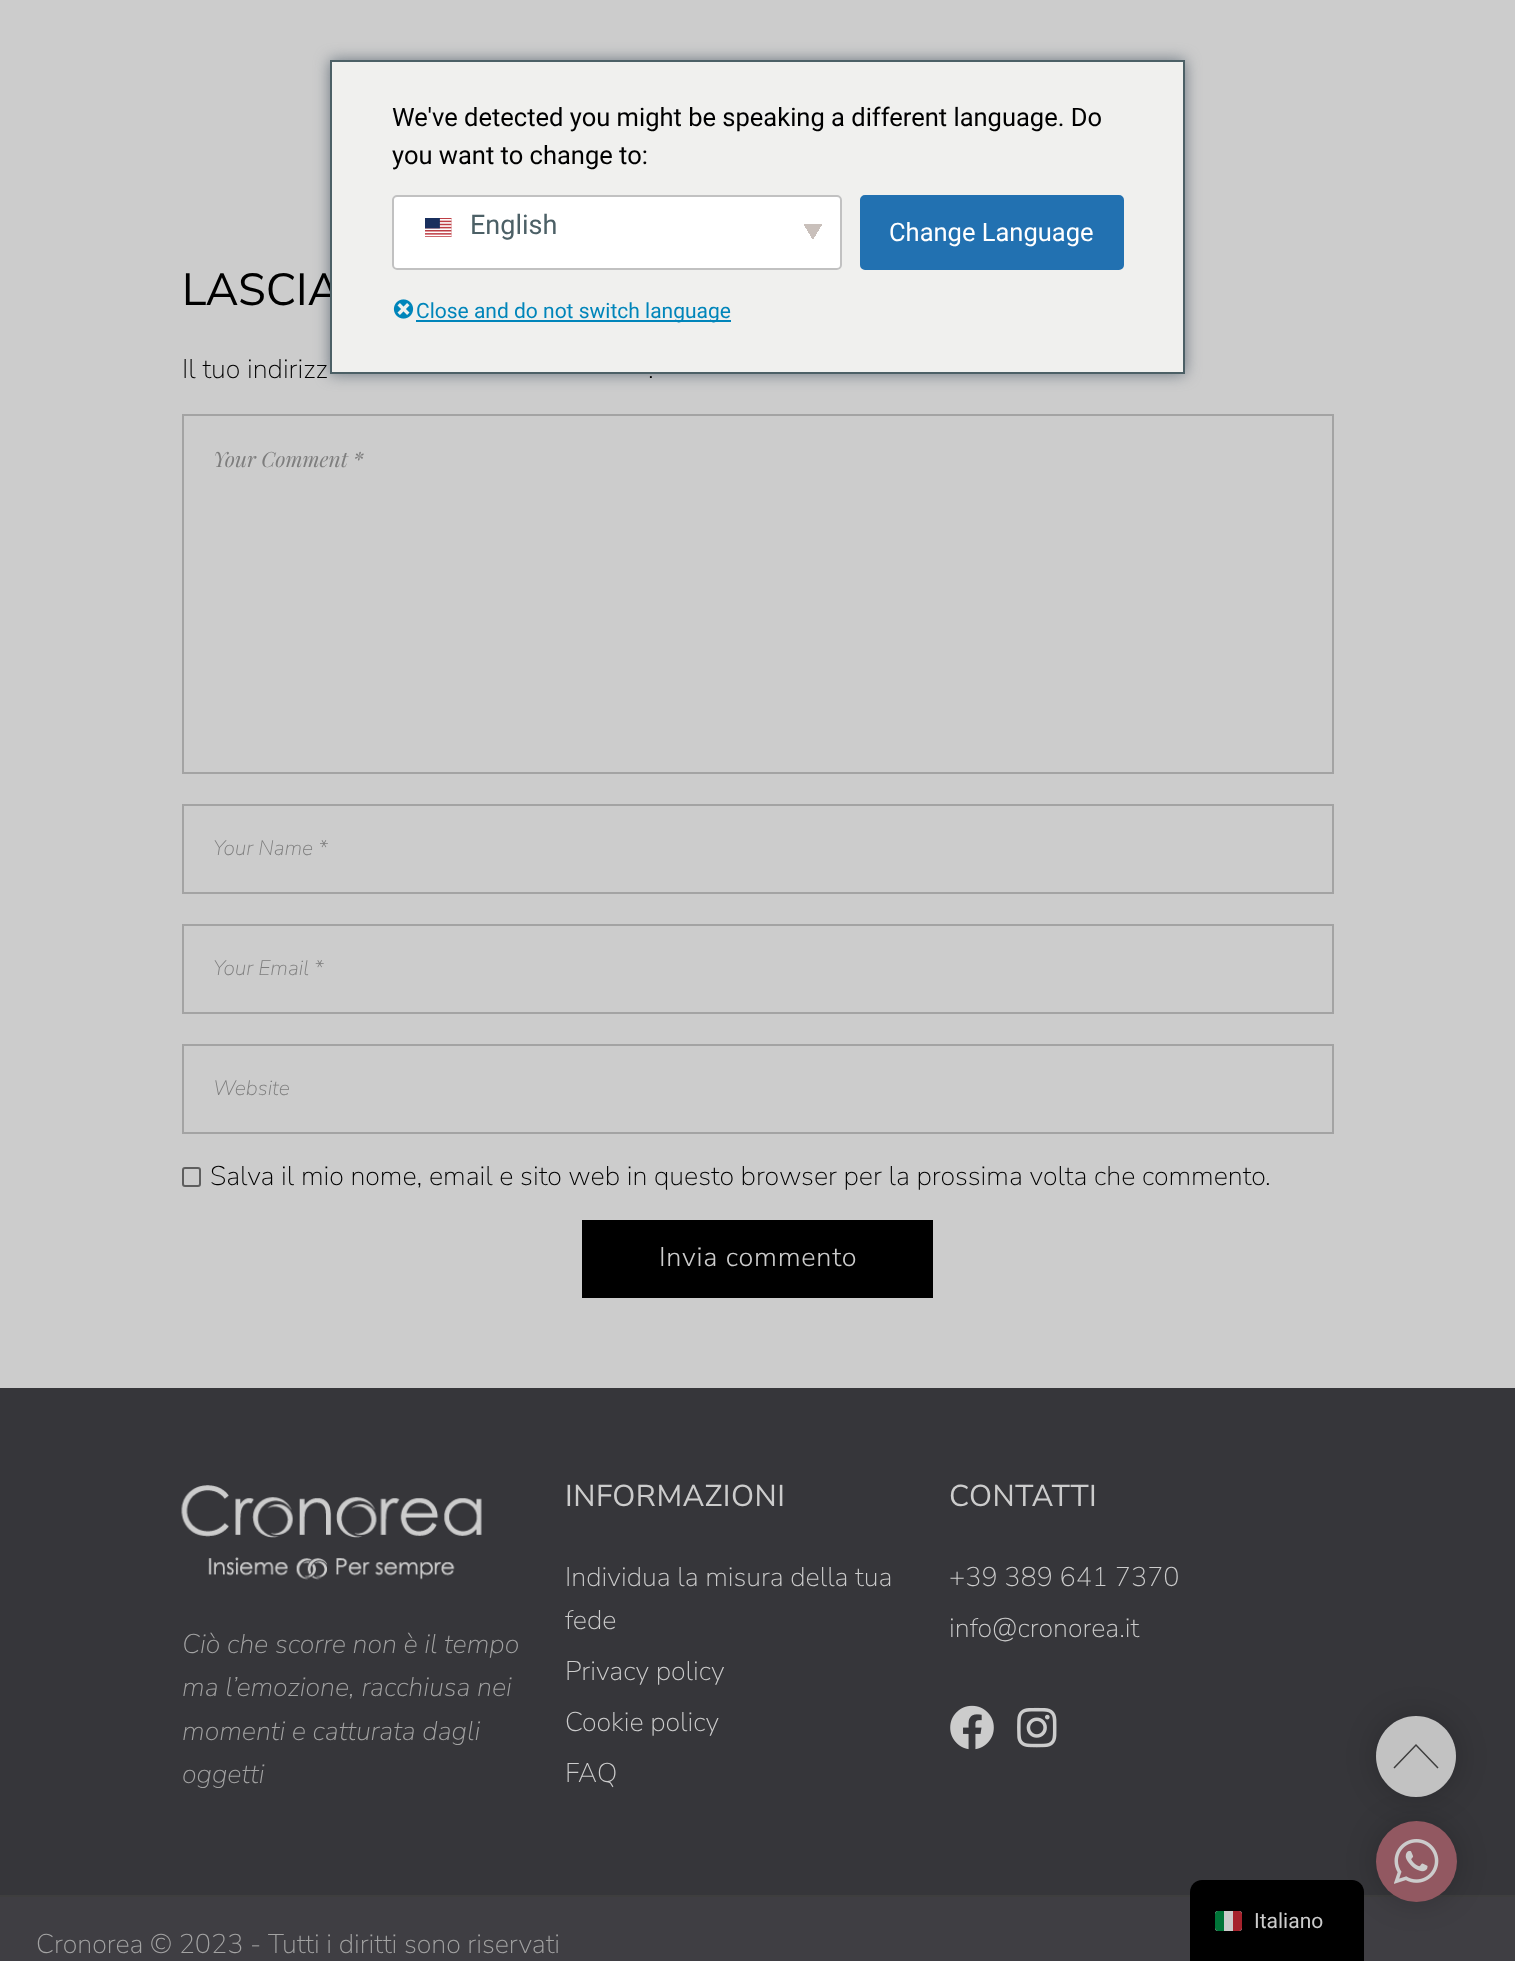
<svg xmlns="http://www.w3.org/2000/svg" width="1515" height="1961" viewBox="0 0 1515 1961">
  <defs>
    <linearGradient id="g1" gradientUnits="userSpaceOnUse" x1="810" y1="228" x2="825" y2="237"><stop offset="0.5" stop-color="rgb(201,192,187)"/><stop offset="0.5" stop-color="rgb(255,255,255)"/></linearGradient>
    <linearGradient id="g2" gradientUnits="userSpaceOnUse" x1="801" y1="237" x2="816" y2="228"><stop offset="0.5" stop-color="rgb(255,255,255)"/><stop offset="0.5" stop-color="rgb(201,192,187)"/></linearGradient>
  </defs>
  <rect width="100%" height="100%" fill="rgb(204,204,204)"/>
  <rect x="330" y="60" width="855" height="314" fill="rgb(108,119,129)" filter="blur(7.5px)"/>
  <text x="182" y="305" font-family="Nunito Sans" font-size="45" fill="rgb(0,0,0)">LASCIA</text>
  <rect x="331" y="61" width="853" height="312" fill="rgb(240,240,238)" stroke="rgb(76,96,102)" stroke-width="2"/>
  <g font-family="Roboto" font-size="25.5" fill="rgb(0,0,0)">
    <text>
      <tspan x="392" y="126">We've detected you might be speaking a different language. Do</tspan>
      <tspan x="392" y="164">you want to change to:</tspan>
    </text>
  </g>
  <rect x="392" y="195" width="450" height="75" rx="5" fill="rgb(255,255,255)"/>
  <rect x="813" y="224" width="9" height="15" fill="url(#g1)"/>
  <rect x="804" y="224" width="9" height="15" fill="url(#g2)"/>
  <rect x="393" y="196" width="448" height="73" rx="4" fill="none" stroke="rgb(193,193,193)" stroke-width="2"/>
  <image x="425" y="218" width="27" height="19" href="pic1.png"/>
  <text x="470" y="234" font-family="Roboto" font-size="27" fill="rgb(76,96,102)">English</text>
  <rect x="861" y="196" width="262" height="73" rx="4" fill="rgb(34,113,177)" stroke="rgb(34,113,177)" stroke-width="2"/>
  <text x="889" y="241" font-family="Roboto" font-size="25.5" fill="rgb(255,255,255)">Change Language</text>
  <image x="393" y="299" width="21" height="20" href="pic2.png"/>
  <rect x="416" y="320" width="315" height="2" fill="rgb(0,133,186)"/>
  <text x="416" y="318" font-family="Roboto" font-size="21" fill="rgb(0,133,186)">Close and do not switch language</text>
  <g font-family="Nunito Sans" font-size="27" font-weight="200" fill="rgb(0,0,0)">
    <text x="182" y="378">Il tuo indirizz</text>
    <text x="648" y="378">.</text>
  </g>
  <rect x="183" y="415" width="1150" height="358" fill="none" stroke="rgb(163,163,163)" stroke-width="2"/>
  <text x="213" y="467" font-family="Playfair Display" font-size="21" font-style="italic" fill="rgb(125,125,125)">Your Comment *</text>
  <rect x="183" y="805" width="1150" height="88" fill="none" stroke="rgb(163,163,163)" stroke-width="2"/>
  <text x="213" y="855" font-family="Nunito Sans" font-size="21" font-weight="200" font-style="italic" fill="rgb(125,125,125)">Your Name *</text>
  <rect x="183" y="925" width="1150" height="88" fill="none" stroke="rgb(163,163,163)" stroke-width="2"/>
  <text x="213" y="975" font-family="Nunito Sans" font-size="21" font-weight="200" font-style="italic" fill="rgb(125,125,125)">Your Email *</text>
  <rect x="183" y="1045" width="1150" height="88" fill="none" stroke="rgb(163,163,163)" stroke-width="2"/>
  <text x="213" y="1095" font-family="Nunito Sans" font-size="21" font-weight="200" font-style="italic" fill="rgb(125,125,125)">Website</text>
  <rect x="183" y="1168" width="17" height="18" rx="2" fill="none" stroke="rgb(94,94,94)" stroke-width="2"/>
  <text x="210" y="1185" font-family="Nunito Sans" font-size="27" font-weight="200" fill="rgb(0,0,0)">Salva il mio nome, email e sito web in questo browser per la prossima volta che commento.</text>
  <rect x="582" y="1220" width="351" height="78" fill="rgb(0,0,0)"/>
  <text x="659" y="1266" font-family="Nunito Sans" font-size="27" font-weight="300" letter-spacing="0.75" fill="rgb(204,204,204)">Invia commento</text>
  <rect x="0" y="1388" width="1515" height="507" fill="rgb(54,54,58)"/>
  <text x="565" y="1506" font-family="Nunito Sans" font-size="30" letter-spacing="0.5" fill="rgb(204,204,204)">INFORMAZIONI</text>
  <g font-family="Nunito Sans" font-size="27" font-weight="200" fill="rgb(204,204,204)">
    <text>
      <tspan x="565" y="1586">Individua la misura della tua</tspan>
      <tspan x="565" y="1629">fede</tspan>
      <tspan x="565" y="1680">Privacy policy</tspan>
      <tspan x="565" y="1731">Cookie policy</tspan>
      <tspan x="565" y="1782">FAQ</tspan>
    </text>
  </g>
  <text x="949" y="1506" font-family="Nunito Sans" font-size="30" letter-spacing="0.5" fill="rgb(204,204,204)">CONTATTI</text>
  <g font-family="Nunito Sans" font-size="27" font-weight="200" fill="rgb(204,204,204)">
    <text>
      <tspan x="949" y="1586">+39 389 641 7370</tspan>
      <tspan x="949" y="1637">info@cronorea.it</tspan>
    </text>
  </g>
  <image x="950" y="1705" width="44" height="45" href="pic3.png"/>
  <image x="1017" y="1707" width="40" height="41" href="pic4.png"/>
  <image x="181" y="1485" width="301" height="95" href="pic5.png"/>
  <g font-family="Nunito Sans" font-size="27" font-weight="200" font-style="italic" fill="rgb(163,163,163)">
    <text>
      <tspan x="182" y="1653">Ciò che scorre non è il tempo</tspan>
      <tspan x="182" y="1696">ma l’emozione, racchiusa nei</tspan>
      <tspan x="182" y="1740">momenti e catturata dagli</tspan>
      <tspan x="182" y="1783">oggetti</tspan>
    </text>
  </g>
  <rect x="0" y="1897" width="1515" height="64" fill="rgb(63,62,67)"/>
  <rect x="0" y="1895" width="1515" height="2" fill="rgb(62,62,62)"/>
  <text x="36" y="1953" font-family="Nunito Sans" font-size="27" font-weight="200" fill="rgb(163,163,163)">Cronorea © 2023 - Tutti i diritti sono riservati</text>
  <rect x="1376" y="1716" width="81" height="81" rx="40.5" fill="rgba(0,0,0,0.2)" filter="blur(15px)"/>
  <path d="M1456 1756C1456 1779 1438 1797 1416 1797C1394 1797 1376 1779 1376 1756C1376 1734 1394 1716 1416 1716C1438 1716 1456 1734 1456 1756Z" fill="rgb(194,194,194)"/>
  <path d="M1438 1768L1416 1745L1394 1768" fill="none" stroke="rgb(62,62,62)" stroke-width="1.5"/>
  <path d="M1202 1880H1352C1358.5 1880 1364 1885.5 1364 1892V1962H1190V1892C1190 1885.5 1195.5 1880 1202 1880Z" fill="rgb(0,0,0)"/>
  <rect x="1215" y="1911" width="27" height="20" rx="3" fill="rgb(204,204,204)"/>
  <path d="M1218 1911H1224V1931H1218C1216.5 1931 1215 1929.5 1215 1928V1914C1215 1912.5 1216.5 1911 1218 1911Z" fill="rgb(0,117,56)"/>
  <path d="M1233 1911H1239C1240.5 1911 1242 1912.5 1242 1914V1928C1242 1929.5 1240.5 1931 1239 1931H1233Z" fill="rgb(165,34,44)"/>
  <text x="1254" y="1928" font-family="Roboto" font-size="21" fill="rgb(204,204,204)">Italiano</text>
  <rect x="1376" y="1821" width="81" height="81" rx="40.5" fill="rgba(0,0,0,0.2)" filter="blur(15px)"/>
  <circle cx="1416.5" cy="1861.5" r="40.5" fill="rgb(146,88,97)"/>
  <image x="1394" y="1839" width="45" height="45" href="pic6.png"/>
</svg>
